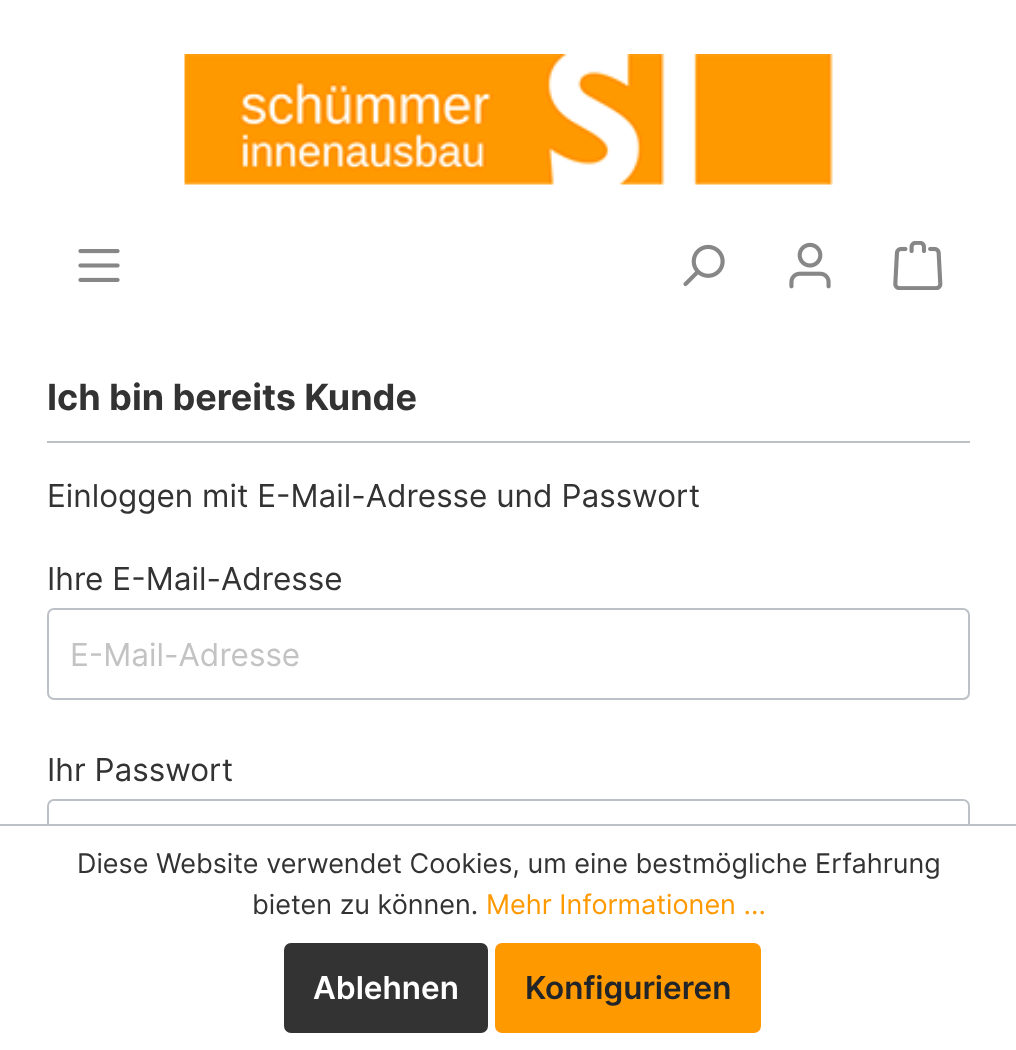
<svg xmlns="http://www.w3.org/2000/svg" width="1016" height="1050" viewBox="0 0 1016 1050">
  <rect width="100%" height="100%" fill="rgb(255,255,255)"/>
  <image x="184" y="54" width="649" height="131" href="pic1.png"/>
  <image x="78" y="249" width="42" height="33" href="pic2.png"/>
  <image x="683" y="244" width="42" height="43" href="pic3.png"/>
  <image x="789" y="242" width="42" height="47" href="pic4.png"/>
  <image x="893" y="241" width="50" height="49" href="pic5.png"/>
  <rect x="47" y="441" width="923" height="2" fill="rgb(188,193,199)"/>
  <text x="47" y="410" font-family="Inter" font-size="36" font-weight="bold" fill="rgb(51,51,51)">Ich bin bereits Kunde</text>
  <g font-family="Inter" font-size="31.5" fill="rgb(51,51,51)">
    <text x="47" y="507">Einloggen mit E-Mail-Adresse und Passwort</text>
    <text x="47" y="590">Ihre E-Mail-Adresse</text>
  </g>
  <rect x="48" y="609" width="921" height="90" rx="6" fill="none" stroke="rgb(188,193,199)" stroke-width="2"/>
  <text x="70" y="666" font-family="Inter" font-size="31.5" fill="rgb(195,195,195)">E-Mail-Adresse</text>
  <text x="47" y="781" font-family="Inter" font-size="31.5" fill="rgb(51,51,51)">Ihr Passwort</text>
  <rect x="48" y="800" width="921" height="90" rx="6" fill="none" stroke="rgb(188,193,199)" stroke-width="2"/>
  <rect x="47" y="826" width="923" height="65" fill="rgb(255,255,255)"/>
  <rect x="0" y="824" width="1016" height="2" fill="rgb(188,193,199)"/>
  <g font-family="Inter" font-size="27" fill="rgb(51,51,51)">
    <text x="77" y="873">Diese Website verwendet Cookies, um eine bestmögliche Erfahrung</text>
    <text x="252" y="914">bieten zu können.</text>
  </g>
  <text x="486" y="914" font-family="Inter" font-size="27" fill="rgb(255,153,0)">Mehr Informationen ...</text>
  <rect x="285" y="944" width="202" height="88" rx="6" fill="rgb(51,51,51)" stroke="rgb(51,51,51)" stroke-width="2"/>
  <text x="313" y="999" font-family="Inter" font-size="31.5" font-weight="600" fill="rgb(255,255,255)">Ablehnen</text>
  <rect x="496" y="944" width="264" height="88" rx="6" fill="rgb(255,153,0)" stroke="rgb(255,153,0)" stroke-width="2"/>
  <text x="525" y="999" font-family="Inter" font-size="31.5" font-weight="600" fill="rgb(33,37,41)">Konfigurieren</text>
</svg>
